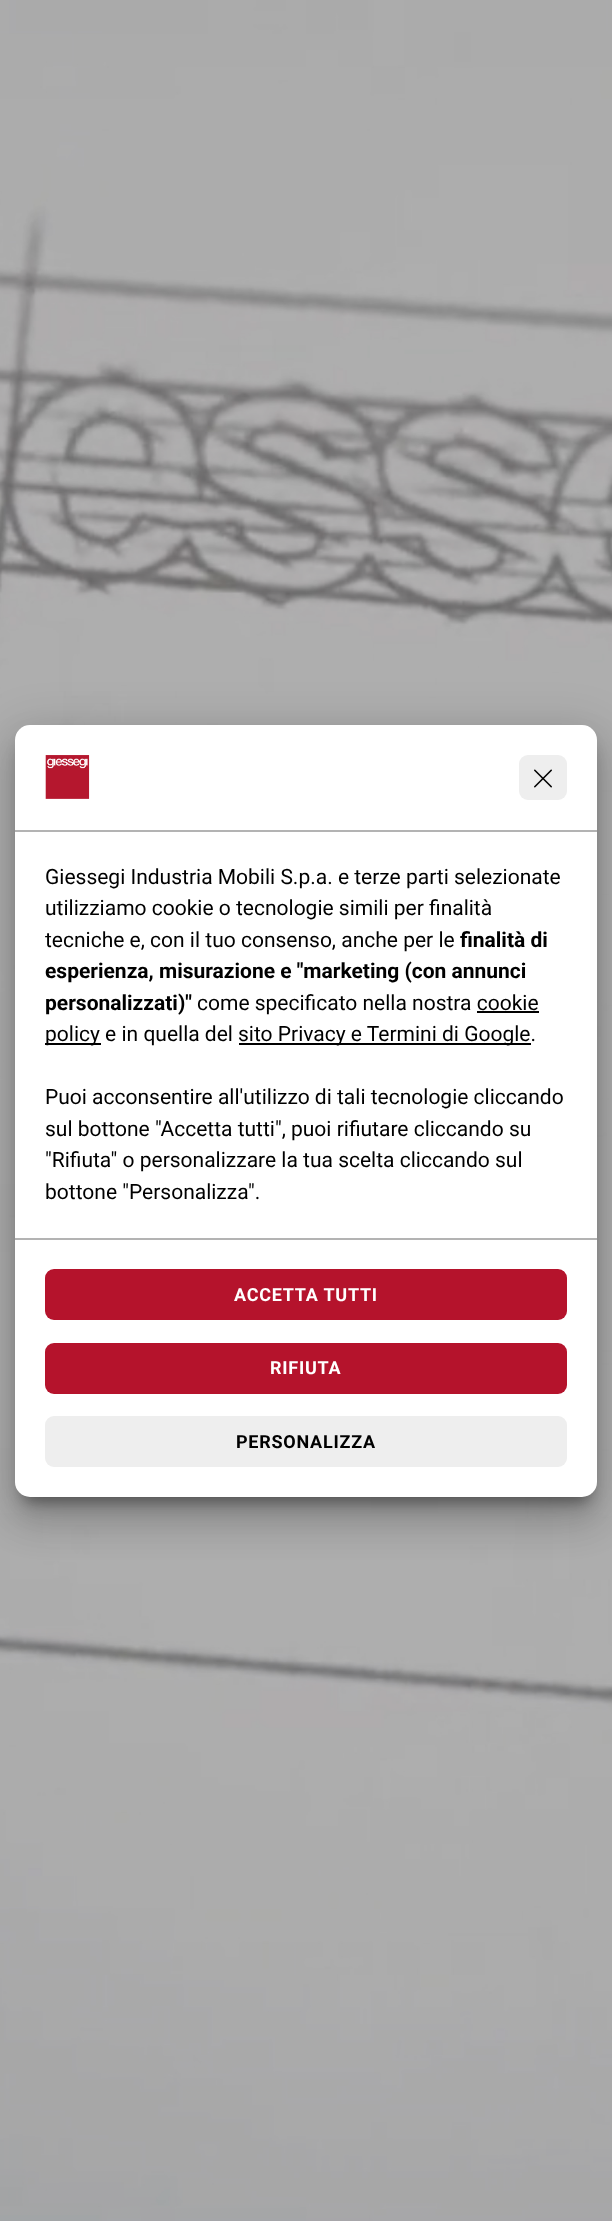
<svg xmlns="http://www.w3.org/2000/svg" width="612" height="2221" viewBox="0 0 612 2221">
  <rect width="100%" height="100%" fill="rgb(255,255,255)"/>
  <image x="0" y="0" width="612" height="2221" href="pic1.png"/>
  <rect x="23" y="744" width="567" height="758" rx="8" fill="rgba(0,0,0,0.4)" filter="blur(7.5px)"/>
  <rect x="8" y="726" width="597" height="788" rx="23" fill="rgba(0,0,0,0.12)" filter="blur(22.5px)"/>
  <rect x="12" y="746" width="588" height="778" rx="18" fill="rgba(0,0,0,0.14)" filter="blur(18px)"/>
  <rect x="15" y="725" width="582" height="772" rx="15" fill="rgb(255,255,255)"/>
  <rect x="15" y="830" width="582" height="2" fill="rgb(179,179,179)"/>
  <image x="45" y="755" width="45" height="44" href="pic2.png"/>
  <rect x="519" y="755" width="48" height="45" rx="9" fill="rgb(238,238,238)"/>
  <image x="534" y="769" width="18" height="19" href="pic3.png"/>
  <g font-family="Roboto" font-size="21" fill="rgb(0,0,0)">
    <text>
      <tspan x="45" y="884">Giessegi Industria Mobili S.p.a. e terze parti selezionate</tspan>
      <tspan x="45" y="915">utilizziamo cookie o tecnologie simili per finalità</tspan>
      <tspan x="45" y="947">tecniche e, con il tuo consenso, anche per le</tspan>
    </text>
  </g>
  <g font-family="Roboto" font-size="21" font-weight="bold" fill="rgb(0,0,0)">
    <text x="460" y="947">finalità di</text>
    <text>
      <tspan x="45" y="978">esperienza, misurazione e "marketing (con annunci</tspan>
      <tspan x="45" y="1010">personalizzati)"</tspan>
    </text>
  </g>
  <text x="197" y="1010" font-family="Roboto" font-size="21" fill="rgb(0,0,0)">come specificato nella nostra cookie</text>
  <rect x="45" y="1043" width="56" height="2" fill="rgb(0,0,0)"/>
  <text x="45" y="1041" font-family="Roboto" font-size="21" fill="rgb(0,0,0)">policy e in quella del</text>
  <rect x="477" y="1011" width="62" height="2" fill="rgb(0,0,0)"/>
  <rect x="239" y="1043" width="292" height="2" fill="rgb(0,0,0)"/>
  <g font-family="Roboto" font-size="21" fill="rgb(0,0,0)">
    <text x="238" y="1041">sito Privacy e Termini di Google.</text>
    <text>
      <tspan x="45" y="1104">Puoi acconsentire all'utilizzo di tali tecnologie cliccando</tspan>
      <tspan x="45" y="1136">sul bottone "Accetta tutti", puoi rifiutare cliccando su</tspan>
      <tspan x="45" y="1167">"Rifiuta" o personalizzare la tua scelta cliccando sul</tspan>
      <tspan x="45" y="1199">bottone "Personalizza".</tspan>
    </text>
  </g>
  <rect x="15" y="1238" width="582" height="2" fill="rgb(179,179,179)"/>
  <rect x="45" y="1269" width="522" height="51" rx="9" fill="rgb(181,19,44)"/>
  <text x="234" y="1301" font-family="Roboto" font-size="18" font-weight="bold" letter-spacing="0.75" fill="rgb(255,255,255)">ACCETTA TUTTI</text>
  <rect x="45" y="1343" width="522" height="51" rx="9" fill="rgb(181,19,44)"/>
  <text x="270" y="1374" font-family="Roboto" font-size="18" font-weight="bold" letter-spacing="0.75" fill="rgb(255,255,255)">RIFIUTA</text>
  <rect x="45" y="1416" width="522" height="51" rx="9" fill="rgb(238,238,238)"/>
  <text x="236" y="1448" font-family="Roboto" font-size="18" font-weight="bold" letter-spacing="0.75" fill="rgb(0,0,0)">PERSONALIZZA</text>
</svg>
